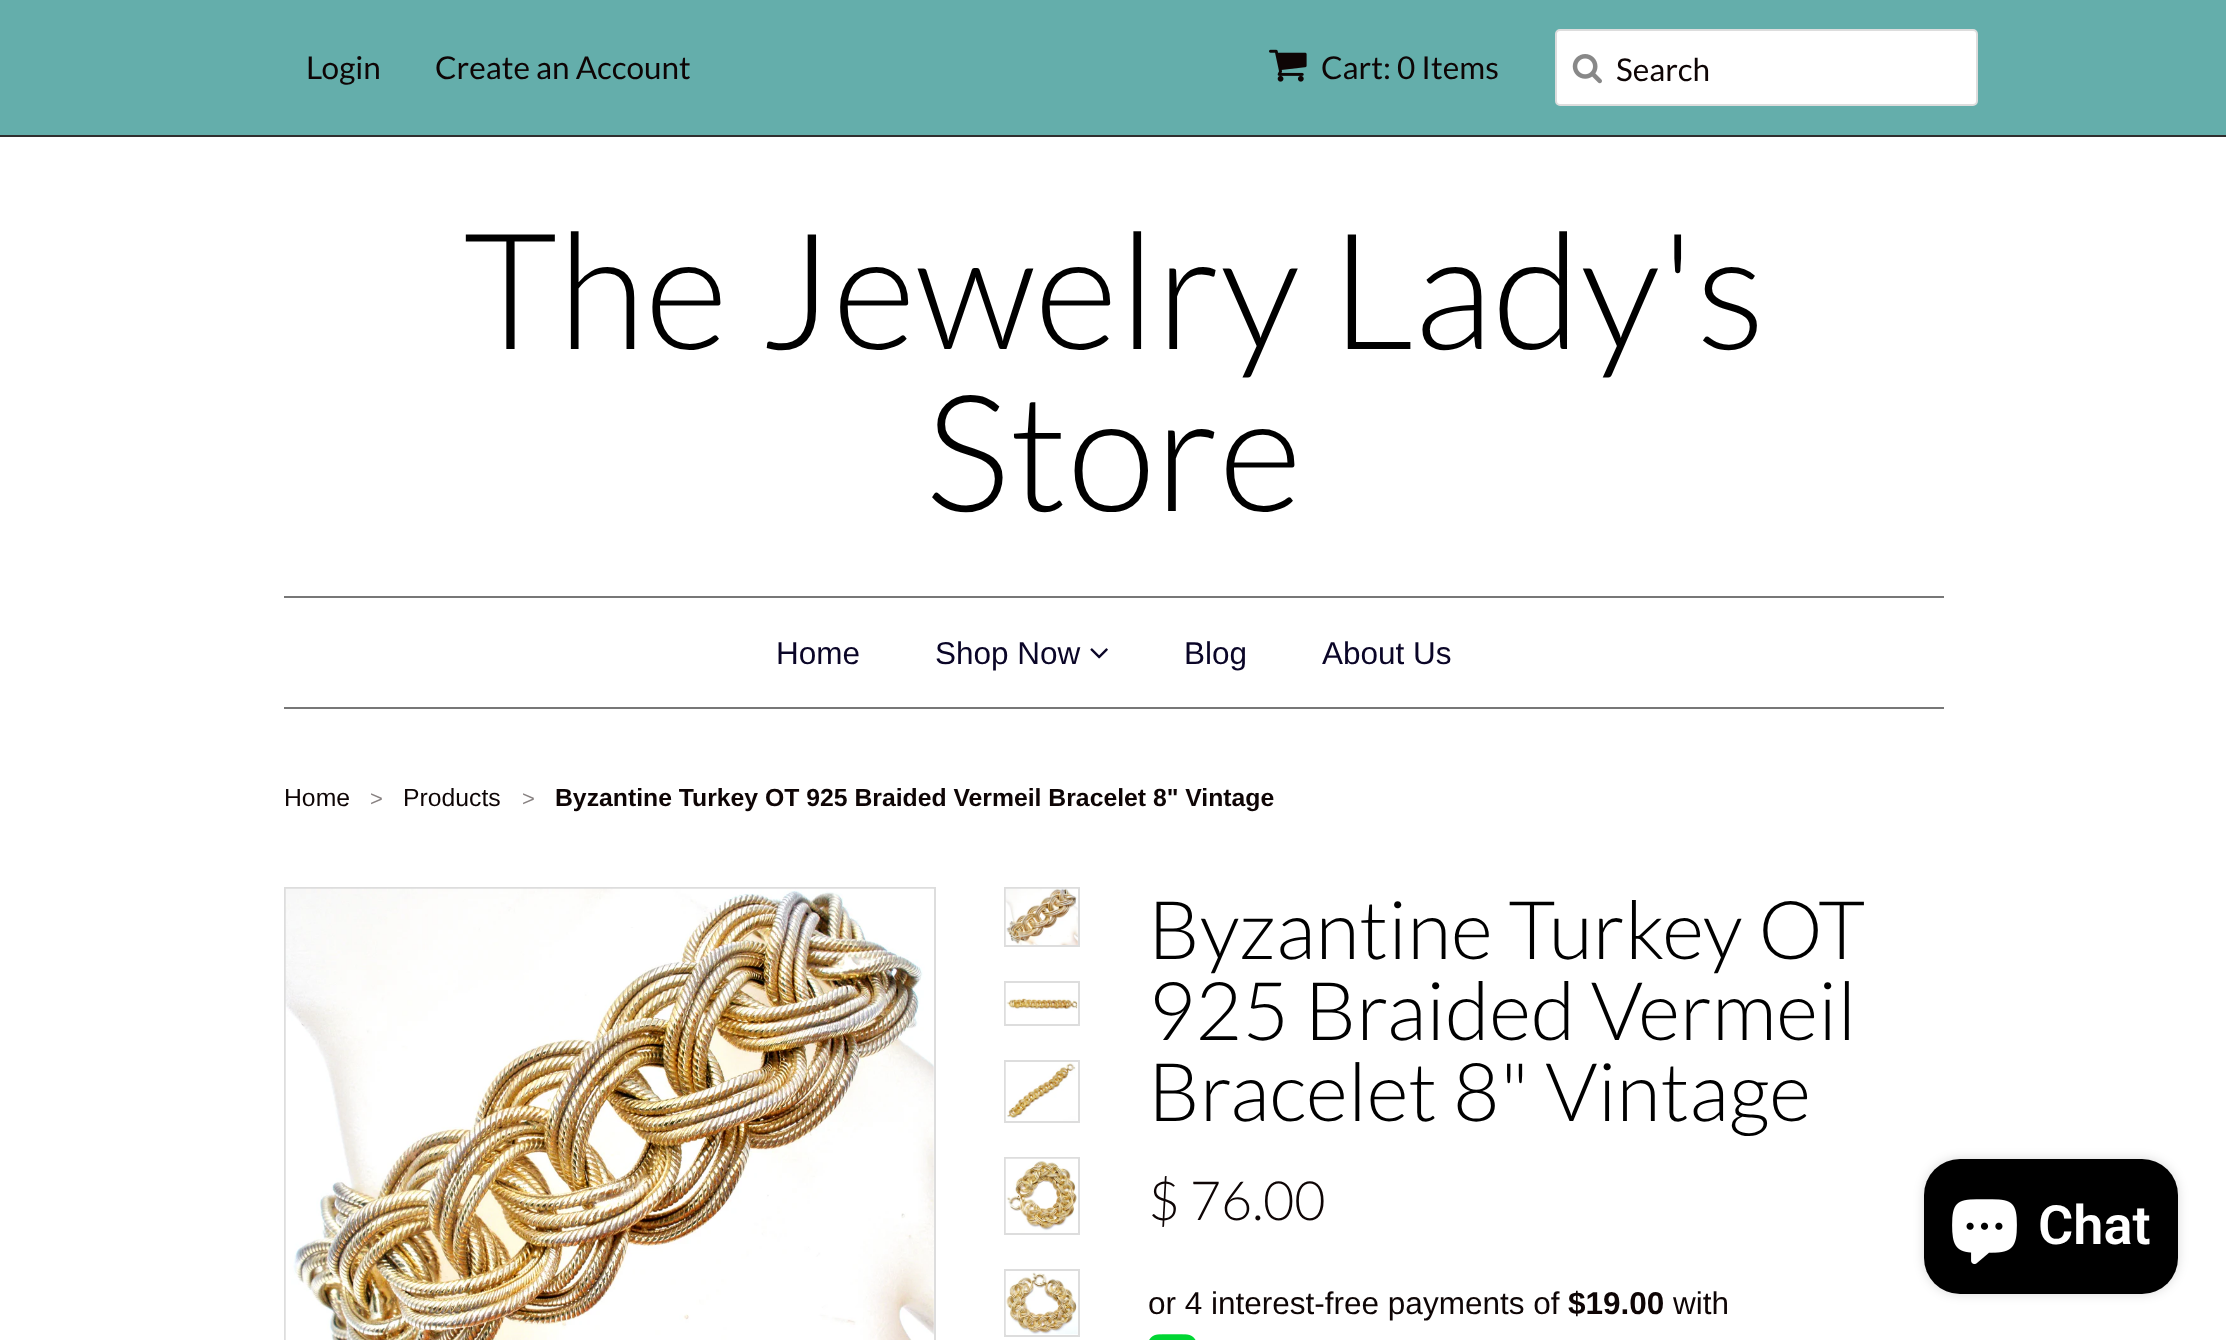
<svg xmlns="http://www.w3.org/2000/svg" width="2226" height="1340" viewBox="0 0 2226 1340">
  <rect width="100%" height="100%" fill="rgb(255,255,255)"/>
  <rect x="0" y="0" width="2226" height="135" fill="rgb(100,174,171)"/>
  <rect x="0" y="135" width="2226" height="2" fill="rgb(47,47,47)"/>
  <g font-family="Lato" font-size="31.5" fill="rgb(14,5,5)">
    <text x="306" y="79">Login</text>
    <text x="435" y="79">Create an Account</text>
  </g>
  <image x="1269" y="49" width="38" height="33" href="pic1.png"/>
  <text x="1321" y="79" font-family="Lato" font-size="31.5" fill="rgb(14,5,5)">Cart: 0 Items</text>
  <rect x="1556" y="30" width="421" height="75" rx="4" fill="rgb(255,255,255)" stroke="rgb(221,221,221)" stroke-width="2"/>
  <image x="1572" y="54" width="30" height="30" href="pic2.png"/>
  <text x="1616" y="81" font-family="Lato" font-size="31.5" fill="rgb(14,5,5)">Search</text>
  <g font-family="Lato" font-size="162" font-weight="300" fill="rgb(0,0,0)">
    <text x="463" y="349">The Jewelry Lady's</text>
    <text x="925" y="511">Store</text>
  </g>
  <rect x="284" y="596" width="1660" height="2" fill="rgb(119,119,119)"/>
  <rect x="284" y="707" width="1660" height="2" fill="rgb(119,119,119)"/>
  <g font-family="Liberation Sans" font-size="31.5" fill="rgb(10,5,39)">
    <text x="776" y="664">Home</text>
    <text x="935" y="664">Shop Now</text>
  </g>
  <image x="1090" y="648" width="18" height="11" href="pic3.png"/>
  <g font-family="Liberation Sans" font-size="31.5" fill="rgb(10,5,39)">
    <text x="1184" y="664">Blog</text>
    <text x="1322" y="664">About Us</text>
  </g>
  <text x="284" y="806" font-family="Liberation Sans" font-size="24.75" fill="rgb(14,5,5)">Home</text>
  <text x="370" y="806" font-family="Liberation Sans" font-size="22" fill="rgb(135,129,129)">&gt;</text>
  <text x="403" y="806" font-family="Liberation Sans" font-size="24.75" fill="rgb(14,5,5)">Products</text>
  <text x="522" y="806" font-family="Liberation Sans" font-size="22" fill="rgb(135,129,129)">&gt;</text>
  <text x="555" y="806" font-family="Liberation Sans" font-size="24.75" font-weight="bold" fill="rgb(14,5,5)">Byzantine Turkey OT 925 Braided Vermeil Bracelet 8" Vintage</text>
  <rect x="285" y="888" width="650" height="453" fill="none" stroke="rgb(221,221,221)" stroke-width="2"/>
  <image x="285" y="888" width="649" height="452" href="pic4.png"/>
  <rect x="1005" y="888" width="74" height="58" fill="none" stroke="rgb(221,221,221)" stroke-width="2"/>
  <image x="1005" y="888" width="73" height="57" href="pic5.png"/>
  <rect x="1005" y="982" width="74" height="43" fill="none" stroke="rgb(221,221,221)" stroke-width="2"/>
  <image x="1005" y="983" width="73" height="41" href="pic6.png"/>
  <rect x="1005" y="1061" width="74" height="61" fill="none" stroke="rgb(221,221,221)" stroke-width="2"/>
  <image x="1005" y="1062" width="71" height="59" href="pic7.png"/>
  <rect x="1005" y="1158" width="74" height="76" fill="none" stroke="rgb(221,221,221)" stroke-width="2"/>
  <image x="1005" y="1158" width="73" height="75" href="pic8.png"/>
  <rect x="1005" y="1270" width="74" height="66" fill="none" stroke="rgb(221,221,221)" stroke-width="2"/>
  <image x="1005" y="1271" width="73" height="64" href="pic9.png"/>
  <g font-family="Lato" font-size="81" font-weight="300" fill="rgb(0,0,0)">
    <text>
      <tspan x="1148" y="959">Byzantine Turkey OT</tspan>
      <tspan x="1148" y="1040">925 Braided Vermeil</tspan>
      <tspan x="1148" y="1121">Bracelet 8" Vintage</tspan>
    </text>
  </g>
  <text x="1148" y="1220" font-family="Lato" font-size="54" font-weight="300" fill="rgb(14,5,5)">$ 76.00</text>
  <text x="1148" y="1314" font-family="Liberation Sans" font-size="31.5" fill="rgb(14,5,5)">or 4 interest-free payments of</text>
  <text x="1568" y="1314" font-family="Liberation Sans" font-size="31.5" font-weight="bold" fill="rgb(14,5,5)">$19.00</text>
  <text x="1673" y="1314" font-family="Liberation Sans" font-size="31.5" fill="rgb(14,5,5)">with</text>
  <image x="1149" y="1334" width="47" height="6" href="pic10.png"/>
  <rect x="1924" y="1159" width="254" height="135" rx="36" fill="rgba(0,0,0,0.15)" filter="blur(5.5px)"/>
  <rect x="1924" y="1159" width="254" height="135" rx="36" fill="rgb(0,0,0)"/>
  <image x="1952" y="1199" width="65" height="65" href="pic11.png"/>
  <text x="2038" y="1244" font-family="Roboto" font-size="54" font-weight="600" fill="rgb(255,255,255)">Chat</text>
</svg>
